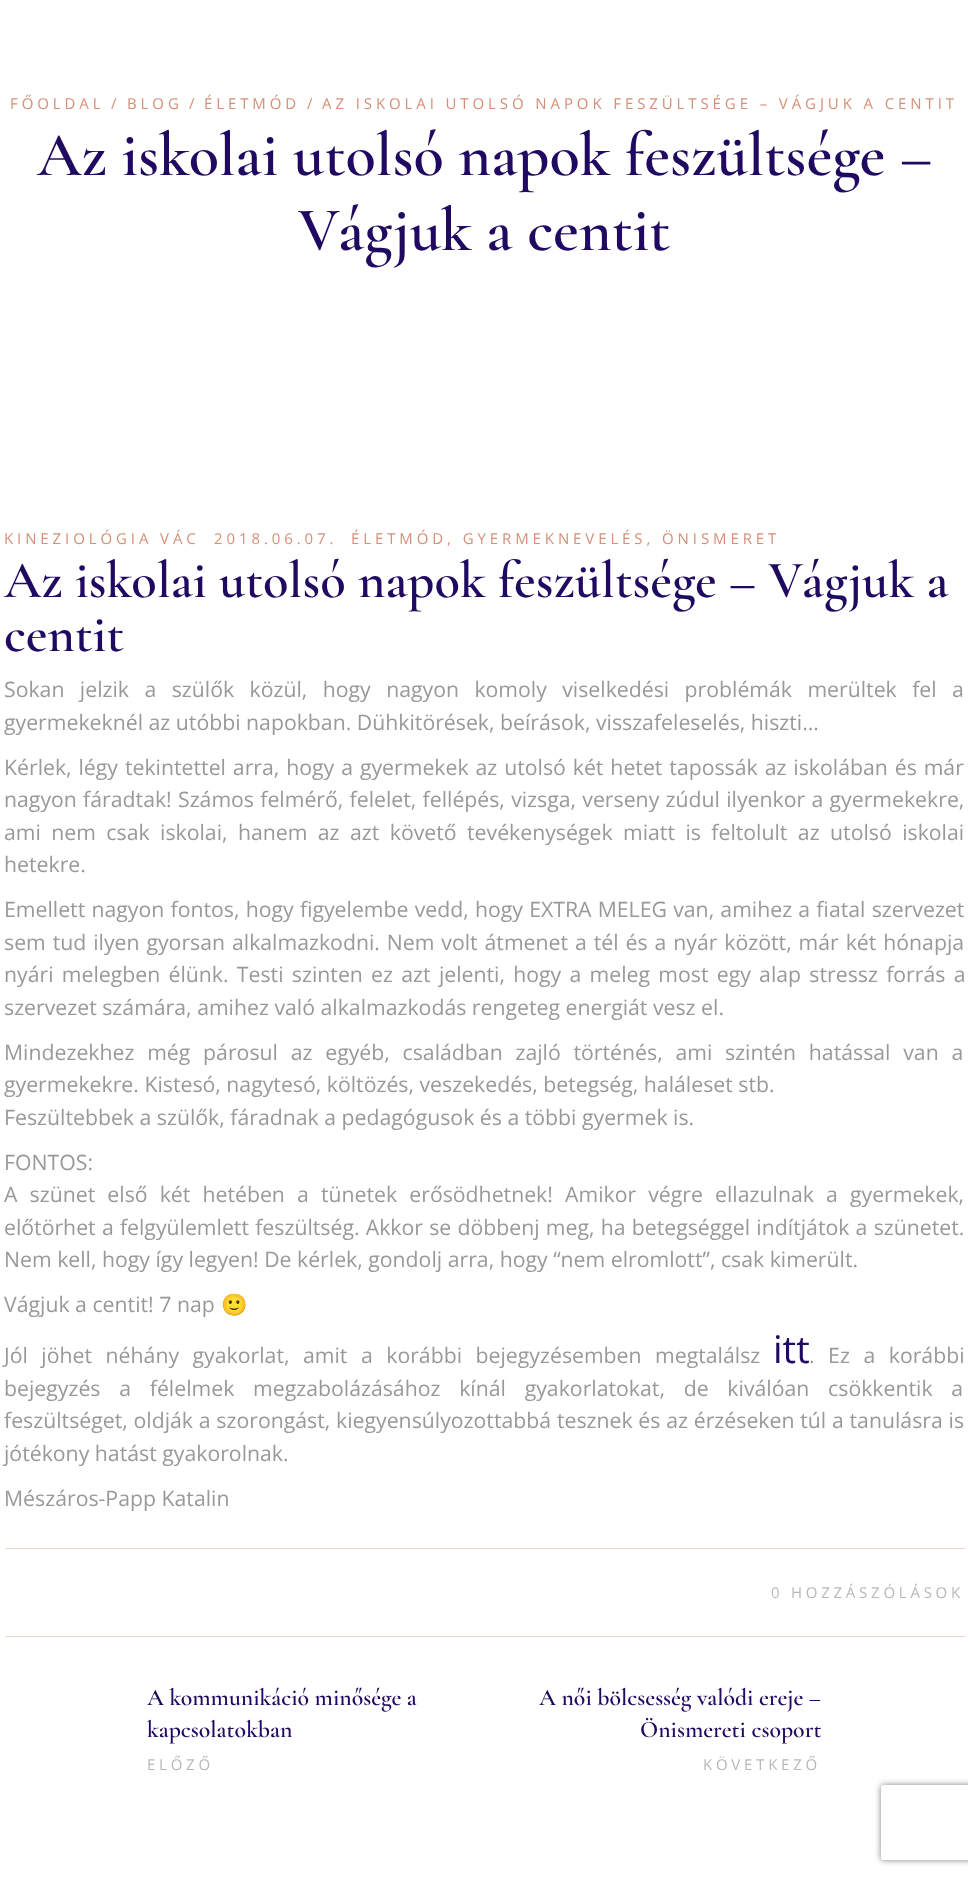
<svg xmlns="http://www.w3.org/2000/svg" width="968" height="1877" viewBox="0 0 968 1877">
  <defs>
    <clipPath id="clip1"><path d="M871 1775H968V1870H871ZM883.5 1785H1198.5C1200 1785 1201 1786 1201 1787.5V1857.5C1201 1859 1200 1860 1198.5 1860H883.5C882 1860 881 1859 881 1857.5V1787.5C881 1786 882 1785 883.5 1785Z" clip-rule="evenodd"/></clipPath>
  </defs>
  <rect width="100%" height="100%" fill="rgb(255,255,255)"/>
  <g font-family="Open Sans" font-size="15" letter-spacing="3.9" fill="rgb(213,143,118)">
    <text x="10" y="109">FŐOLDAL</text>
    <text x="111" y="109">/</text>
    <text x="127" y="109">BLOG</text>
    <text x="189" y="109">/</text>
    <text x="204" y="109">ÉLETMÓD</text>
    <text x="307" y="109">/</text>
    <text x="322" y="109">AZ ISKOLAI UTOLSÓ NAPOK FESZÜLTSÉGE – VÁGJUK A CENTIT</text>
  </g>
  <g font-family="Cormorant Garamond" font-size="62.5" font-weight="600" fill="rgb(32,9,96)">
    <text x="37" y="175">Az iskolai utolsó napok feszültsége –</text>
    <text x="298" y="250">Vágjuk a centit</text>
  </g>
  <g font-family="Open Sans" font-size="15" letter-spacing="3.9" fill="rgb(213,143,118)">
    <text x="4" y="544">KINEZIOLÓGIA VÁC</text>
    <text x="214" y="544">2018.06.07.</text>
    <text x="351" y="544">ÉLETMÓD, GYERMEKNEVELÉS, ÖNISMERET</text>
  </g>
  <g font-family="Cormorant Garamond" font-size="52.5" font-weight="600" fill="rgb(32,9,96)">
    <text>
      <tspan x="4" y="597">Az iskolai utolsó napok feszültsége – Vágjuk a</tspan>
      <tspan x="4" y="651">centit</tspan>
    </text>
  </g>
  <g font-family="Open Sans" font-size="21.25" fill="rgb(153,153,153)">
    <text>
      <tspan x="4" y="697" word-spacing="9.9">Sokan jelzik a szülők közül, hogy nagyon komoly viselkedési problémák merültek fel a</tspan>
      <tspan x="4" y="730">gyermekeknél az utóbbi napokban. Dühkitörések, beírások, visszafeleselés, hiszti…</tspan>
    </text>
    <text>
      <tspan x="4" y="775" word-spacing="1.4">Kérlek, légy tekintettel arra, hogy a gyermekek az utolsó két hetet tapossák az iskolában és már</tspan>
      <tspan x="4" y="807" word-spacing="0.75">nagyon fáradtak! Számos felmérő, felelet, fellépés, vizsga, verseny zúdul ilyenkor a gyermekekre,</tspan>
      <tspan x="4" y="840" word-spacing="4.9">ami nem csak iskolai, hanem az azt követő tevékenységek miatt is feltolult az utolsó iskolai</tspan>
      <tspan x="4" y="872">hetekre.</tspan>
    </text>
    <text>
      <tspan x="4" y="917" word-spacing="0.7">Emellett nagyon fontos, hogy figyelembe vedd, hogy EXTRA MELEG van, amihez a fiatal szervezet</tspan>
      <tspan x="4" y="950" word-spacing="1.4">sem tud ilyen gyorsan alkalmazkodni. Nem volt átmenet a tél és a nyár között, már két hónapja</tspan>
      <tspan x="4" y="982" word-spacing="2.75">nyári melegben élünk. Testi szinten ez azt jelenti, hogy a meleg most egy alap stressz forrás a</tspan>
      <tspan x="4" y="1015">szervezet számára, amihez való alkalmazkodás rengeteg energiát vesz el.</tspan>
    </text>
    <text>
      <tspan x="4" y="1060" word-spacing="7.25">Mindezekhez még párosul az egyéb, családban zajló történés, ami szintén hatással van a</tspan>
      <tspan x="4" y="1092">gyermekekre. Kistesó, nagytesó, költözés, veszekedés, betegség, haláleset stb.</tspan>
      <tspan x="4" y="1125">Feszültebbek a szülők, fáradnak a pedagógusok és a többi gyermek is.</tspan>
    </text>
    <text>
      <tspan x="4" y="1170">FONTOS:</tspan>
      <tspan x="4" y="1202" word-spacing="6.6">A szünet első két hetében a tünetek erősödhetnek! Amikor végre ellazulnak a gyermekek,</tspan>
      <tspan x="4" y="1235" word-spacing="0.7">előtörhet a felgyülemlett feszültség. Akkor se döbbenj meg, ha betegséggel indítjátok a szünetet.</tspan>
      <tspan x="4" y="1267">Nem kell, hogy így legyen! De kérlek, gondolj arra, hogy “nem elromlott”, csak kimerült.</tspan>
    </text>
    <text x="4" y="1312">Vágjuk a centit! 7 nap</text>
  </g>
  <text x="221" y="1312" font-family="Noto Color Emoji" font-size="21.25" fill="rgb(153,153,153)">🙂</text>
  <text x="4" y="1363" word-spacing="8" font-family="Open Sans" font-size="21.25" fill="rgb(153,153,153)">Jól jöhet néhány gyakorlat, amit a korábbi bejegyzésemben megtalálsz</text>
  <text x="773" y="1363" font-family="Open Sans" font-size="38" fill="rgb(32,9,96)">itt</text>
  <g font-family="Open Sans" font-size="21.25" fill="rgb(153,153,153)">
    <text x="809" y="1363" word-spacing="8">. Ez a korábbi</text>
    <text>
      <tspan x="4" y="1396" word-spacing="13.25">bejegyzés a félelmek megzabolázásához kínál gyakorlatokat, de kiválóan csökkentik a</tspan>
      <tspan x="4" y="1428" word-spacing="0.25">feszültséget, oldják a szorongást, kiegyensúlyozottabbá tesznek és az érzéseken túl a tanulásra is</tspan>
      <tspan x="4" y="1461">jótékony hatást gyakorolnak.</tspan>
    </text>
    <text x="4" y="1506">Mészáros-Papp Katalin</text>
  </g>
  <rect x="5" y="1548" width="960" height="1" fill="rgb(235,216,209)"/>
  <rect x="5" y="1636" width="960" height="1" fill="rgb(235,216,209)"/>
  <text x="771" y="1598" font-family="Open Sans" font-size="15" letter-spacing="3.75" fill="rgb(184,184,184)">0 HOZZÁSZÓLÁSOK</text>
  <g font-family="Cormorant Garamond" font-size="23.75" font-weight="600" fill="rgb(32,9,96)">
    <text>
      <tspan x="147" y="1705">A kommunikáció minősége a</tspan>
      <tspan x="147" y="1737">kapcsolatokban</tspan>
    </text>
  </g>
  <text x="147" y="1770" font-family="Open Sans" font-size="15" letter-spacing="3.75" fill="rgb(184,184,184)">ELŐZŐ</text>
  <g font-family="Cormorant Garamond" font-size="23.75" font-weight="600" fill="rgb(32,9,96)">
    <text x="539" y="1705">A női bölcsesség valódi ereje –</text>
    <text x="640" y="1737">Önismereti csoport</text>
  </g>
  <text x="703" y="1770" font-family="Open Sans" font-size="15" letter-spacing="3.75" fill="rgb(184,184,184)">KÖVETKEZŐ</text>
  <g clip-path="url(#clip1)">
    <rect x="881" y="1785" width="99" height="75" rx="2.5" fill="rgb(128,128,128)" filter="blur(3px)"/>
  </g>
</svg>
